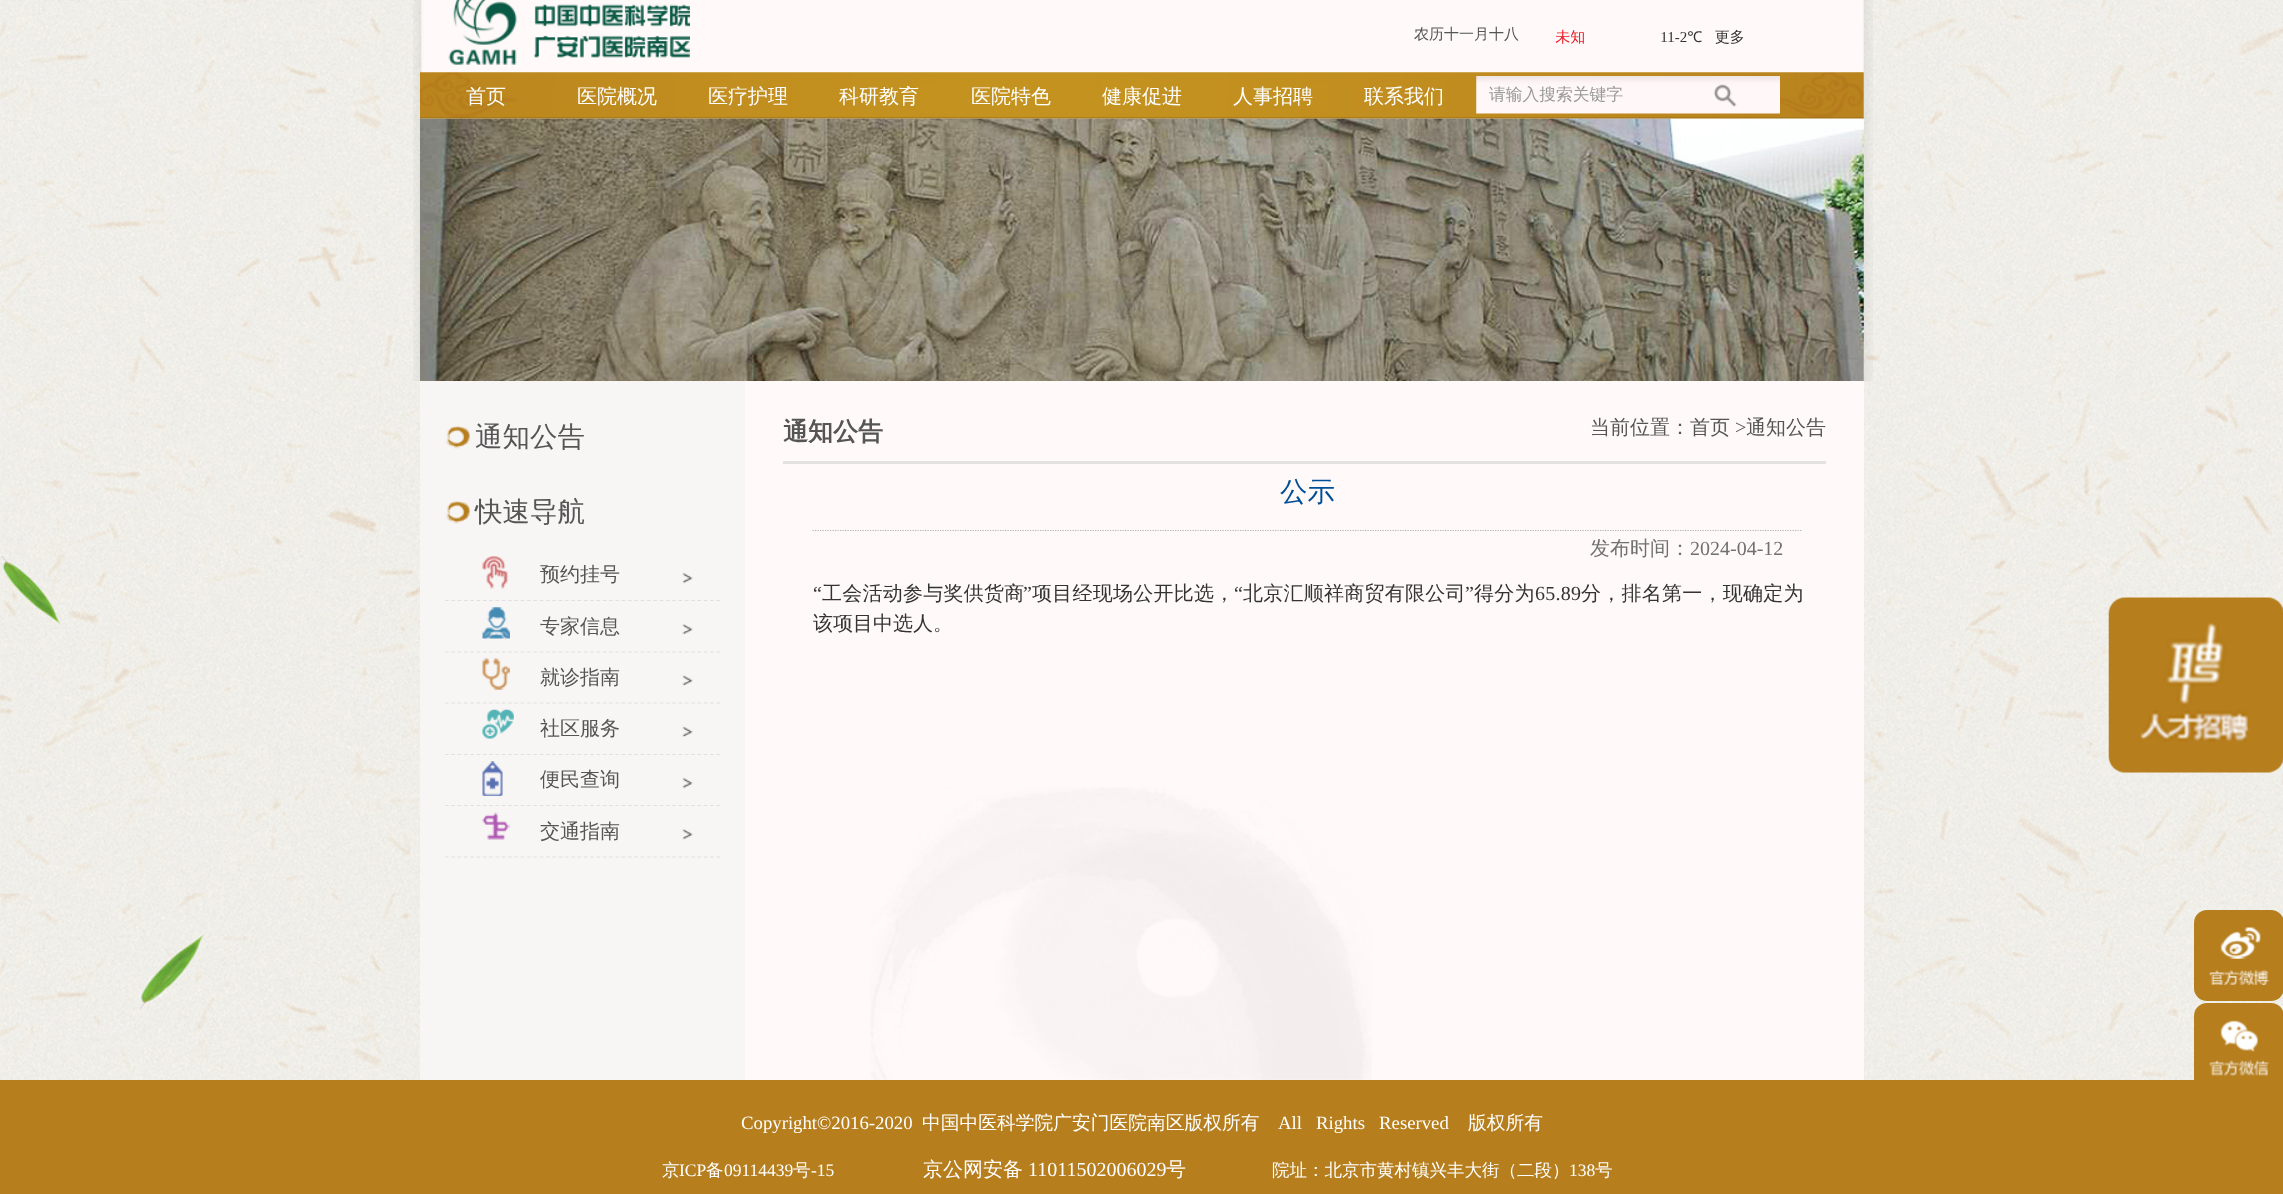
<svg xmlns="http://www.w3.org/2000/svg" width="2283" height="1194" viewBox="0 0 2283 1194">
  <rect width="100%" height="100%" fill="rgb(255,255,255)"/>
  <image x="0" y="0" width="2283" height="1080" href="pic1.png"/>
  <image x="413" y="0" width="1460" height="381" href="pic2.png"/>
  <image x="448" y="0" width="242" height="65" href="pic3.png"/>
  <text x="1414" y="39" font-family="WenQuanYi Zen Hei" font-size="15" font-weight="500" fill="rgb(85,85,85)">农历十一月十八</text>
  <image x="1555" y="29" width="189" height="15" href="pic4.png"/>
  <image x="420" y="118" width="1444" height="263" href="pic8.png"/>
  <image x="420" y="72" width="1444" height="47" href="pic5.png"/>
  <g font-family="WenQuanYi Zen Hei" font-size="20" font-weight="500" fill="rgb(255,255,255)">
    <text x="466" y="103">首页</text>
    <text x="577" y="103">医院概况</text>
    <text x="708" y="103">医疗护理</text>
    <text x="839" y="103">科研教育</text>
    <text x="971" y="103">医院特色</text>
    <text x="1102" y="103">健康促进</text>
    <text x="1233" y="103">人事招聘</text>
    <text x="1364" y="103">联系我们</text>
  </g>
  <image x="1476" y="76" width="304" height="38" href="pic6.png"/>
  <text x="1489" y="100" font-family="WenQuanYi Zen Hei" font-size="16.75" font-weight="500" fill="rgb(153,153,153)">请输入搜索关键字</text>
  <image x="1713" y="84" width="24" height="23" href="pic7.png"/>
  <image x="0" y="553" width="61" height="72" href="pic9.png"/>
  <rect x="420" y="381" width="325" height="699" fill="rgb(248,245,245)"/>
  <image x="445" y="426" width="25" height="23" href="pic10.png"/>
  <text x="475" y="446" font-family="WenQuanYi Zen Hei" font-size="27.5" font-weight="500" fill="rgb(85,85,85)">通知公告</text>
  <image x="445" y="501" width="25" height="23" href="pic10.png"/>
  <text x="475" y="521" font-family="WenQuanYi Zen Hei" font-size="27.5" font-weight="500" fill="rgb(85,85,85)">快速导航</text>
  <image x="682" y="572" width="11" height="12" href="pic11.png"/>
  <path d="M445 600.5H720" fill="none" stroke="rgb(224,224,224)" stroke-width="1.2" stroke-dasharray="3.75 2.56"/>
  <image x="482" y="556" width="26" height="33" href="pic12.png"/>
  <text x="540" y="581" font-family="WenQuanYi Zen Hei" font-size="20" font-weight="500" fill="rgb(85,85,85)">预约挂号</text>
  <image x="682" y="623" width="11" height="12" href="pic13.png"/>
  <path d="M445 652H720" fill="none" stroke="rgb(224,224,224)" stroke-width="1.2" stroke-dasharray="3.75 2.56"/>
  <image x="482" y="607" width="28" height="32" href="pic14.png"/>
  <text x="540" y="633" font-family="WenQuanYi Zen Hei" font-size="20" font-weight="500" fill="rgb(85,85,85)">专家信息</text>
  <image x="682" y="675" width="11" height="11" href="pic15.png"/>
  <path d="M445 703H720" fill="none" stroke="rgb(224,224,224)" stroke-width="1.2" stroke-dasharray="3.75 2.56"/>
  <image x="482" y="658" width="28" height="32" href="pic16.png"/>
  <text x="540" y="684" font-family="WenQuanYi Zen Hei" font-size="20" font-weight="500" fill="rgb(85,85,85)">就诊指南</text>
  <image x="682" y="726" width="11" height="11" href="pic17.png"/>
  <path d="M445 754.5H720" fill="none" stroke="rgb(224,224,224)" stroke-width="1.2" stroke-dasharray="3.75 2.56"/>
  <image x="482" y="709" width="32" height="30" href="pic18.png"/>
  <text x="540" y="735" font-family="WenQuanYi Zen Hei" font-size="20" font-weight="500" fill="rgb(85,85,85)">社区服务</text>
  <image x="682" y="777" width="11" height="12" href="pic11.png"/>
  <path d="M445 805.5H720" fill="none" stroke="rgb(224,224,224)" stroke-width="1.2" stroke-dasharray="3.75 2.56"/>
  <image x="482" y="761" width="21" height="35" href="pic19.png"/>
  <text x="540" y="786" font-family="WenQuanYi Zen Hei" font-size="20" font-weight="500" fill="rgb(85,85,85)">便民查询</text>
  <image x="682" y="828" width="11" height="12" href="pic13.png"/>
  <path d="M445 857H720" fill="none" stroke="rgb(224,224,224)" stroke-width="1.2" stroke-dasharray="3.75 2.56"/>
  <image x="482" y="812" width="28" height="28" href="pic20.png"/>
  <text x="540" y="838" font-family="WenQuanYi Zen Hei" font-size="20" font-weight="500" fill="rgb(85,85,85)">交通指南</text>
  <rect x="745" y="381" width="1119" height="699" fill="rgb(255,249,249)"/>
  <rect x="783" y="461" width="1043" height="3" fill="rgb(227,226,226)"/>
  <text x="783" y="440" font-family="WenQuanYi Zen Hei" font-size="25" font-weight="bold" fill="rgb(85,85,85)">通知公告</text>
  <text x="1590" y="434" font-family="WenQuanYi Zen Hei" font-size="20" font-weight="500" fill="rgb(85,85,85)">当前位置：首页</text>
  <text x="1735" y="434" font-family="Liberation Serif" font-size="20" fill="rgb(85,85,85)">&gt;</text>
  <text x="1746" y="434" font-family="WenQuanYi Zen Hei" font-size="20" font-weight="500" fill="rgb(85,85,85)">通知公告</text>
  <image x="870" y="787" width="502" height="293" href="pic21.png"/>
  <path d="M812.5 530.5H1802.5" fill="none" stroke="rgb(179,179,181)" stroke-width="1.2" stroke-dasharray="1.25 1.25"/>
  <text x="1280" y="501" font-family="WenQuanYi Zen Hei" font-size="27.5" font-weight="500" fill="rgb(0,78,151)">公示</text>
  <text x="1590" y="555" font-family="WenQuanYi Zen Hei" font-size="20" font-weight="500" fill="rgb(113,112,112)">发布时间：</text>
  <text x="1690" y="555" font-family="Liberation Serif" font-size="20" fill="rgb(113,112,112)">2024-04-12</text>
  <text x="813" y="600" font-family="Liberation Serif" font-size="20" letter-spacing="0.25" fill="rgb(51,51,51)">“</text>
  <text x="822" y="600" font-family="WenQuanYi Zen Hei" font-size="20" font-weight="500" letter-spacing="0.25" fill="rgb(51,51,51)">工会活动参与奖供货商</text>
  <text x="1023" y="600" font-family="Liberation Serif" font-size="20" letter-spacing="0.25" fill="rgb(51,51,51)">”</text>
  <text x="1032" y="600" font-family="WenQuanYi Zen Hei" font-size="20" font-weight="500" letter-spacing="0.25" fill="rgb(51,51,51)">项目经现场公开比选，</text>
  <text x="1234" y="600" font-family="Liberation Serif" font-size="20" letter-spacing="0.25" fill="rgb(51,51,51)">“</text>
  <text x="1243" y="600" font-family="WenQuanYi Zen Hei" font-size="20" font-weight="500" letter-spacing="0.25" fill="rgb(51,51,51)">北京汇顺祥商贸有限公司</text>
  <text x="1465" y="600" font-family="Liberation Serif" font-size="20" letter-spacing="0.25" fill="rgb(51,51,51)">”</text>
  <text x="1474" y="600" font-family="WenQuanYi Zen Hei" font-size="20" font-weight="500" letter-spacing="0.25" fill="rgb(51,51,51)">得分为</text>
  <text x="1535" y="600" font-family="Liberation Serif" font-size="20" letter-spacing="0.25" fill="rgb(51,51,51)">65.89</text>
  <text x="1581" y="600" font-family="WenQuanYi Zen Hei" font-size="20" font-weight="500" letter-spacing="0.25" fill="rgb(51,51,51)">分，排名第一，现确定为</text>
  <text x="813" y="630" font-family="WenQuanYi Zen Hei" font-size="20" font-weight="500" fill="rgb(51,51,51)">该项目中选人。</text>
  <image x="114" y="917" width="91" height="98" href="pic22.png"/>
  <image x="2108" y="597" width="175" height="176" href="pic23.png"/>
  <rect x="2194" y="910" width="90" height="91" rx="13" fill="rgb(182,126,29)"/>
  <image x="2209" y="927" width="60" height="58" href="pic24.png"/>
  <rect x="0" y="1080" width="2283" height="114" fill="rgb(182,126,29)"/>
  <rect x="2194" y="1003" width="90" height="91" rx="13" fill="rgb(182,126,29)"/>
  <image x="2209" y="1020" width="60" height="56" href="pic25.png"/>
  <text x="741" y="1129" font-family="Liberation Serif" font-size="18.75" fill="rgb(255,255,255)">Copyright©2016-2020</text>
  <text x="922" y="1129" font-family="WenQuanYi Zen Hei" font-size="18.75" font-weight="500" fill="rgb(255,255,255)">中国中医科学院广安门医院南区版权所有</text>
  <text x="1278" y="1129" font-family="Liberation Serif" font-size="18.75" fill="rgb(255,255,255)" xml:space="preserve">All   Rights   Reserved</text>
  <text x="1468" y="1129" font-family="WenQuanYi Zen Hei" font-size="18.75" font-weight="500" fill="rgb(255,255,255)">版权所有</text>
  <text x="662" y="1176" font-family="WenQuanYi Zen Hei" font-size="17.5" font-weight="500" fill="rgb(255,255,255)">京</text>
  <text x="679" y="1176" font-family="Liberation Serif" font-size="17.5" fill="rgb(255,255,255)">ICP</text>
  <text x="706" y="1176" font-family="WenQuanYi Zen Hei" font-size="17.5" font-weight="500" fill="rgb(255,255,255)">备</text>
  <text x="724" y="1176" font-family="Liberation Serif" font-size="17.5" fill="rgb(255,255,255)">09114439</text>
  <text x="793" y="1176" font-family="WenQuanYi Zen Hei" font-size="17.5" font-weight="500" fill="rgb(255,255,255)">号</text>
  <text x="811" y="1176" font-family="Liberation Serif" font-size="17.5" fill="rgb(255,255,255)">-15</text>
  <text x="923" y="1176" font-family="WenQuanYi Zen Hei" font-size="20" font-weight="500" fill="rgb(255,255,255)">京公网安备</text>
  <text x="1028" y="1176" font-family="Liberation Serif" font-size="20" fill="rgb(255,255,255)">11011502006029</text>
  <text x="1166" y="1176" font-family="WenQuanYi Zen Hei" font-size="20" font-weight="500" fill="rgb(255,255,255)">号</text>
  <text x="1272" y="1176" font-family="WenQuanYi Zen Hei" font-size="17.5" font-weight="500" fill="rgb(255,255,255)">院址：北京市黄村镇兴丰大街（二段）</text>
  <text x="1569" y="1176" font-family="Liberation Serif" font-size="17.5" fill="rgb(255,255,255)">138</text>
  <text x="1595" y="1176" font-family="WenQuanYi Zen Hei" font-size="17.5" font-weight="500" fill="rgb(255,255,255)">号</text>
</svg>
